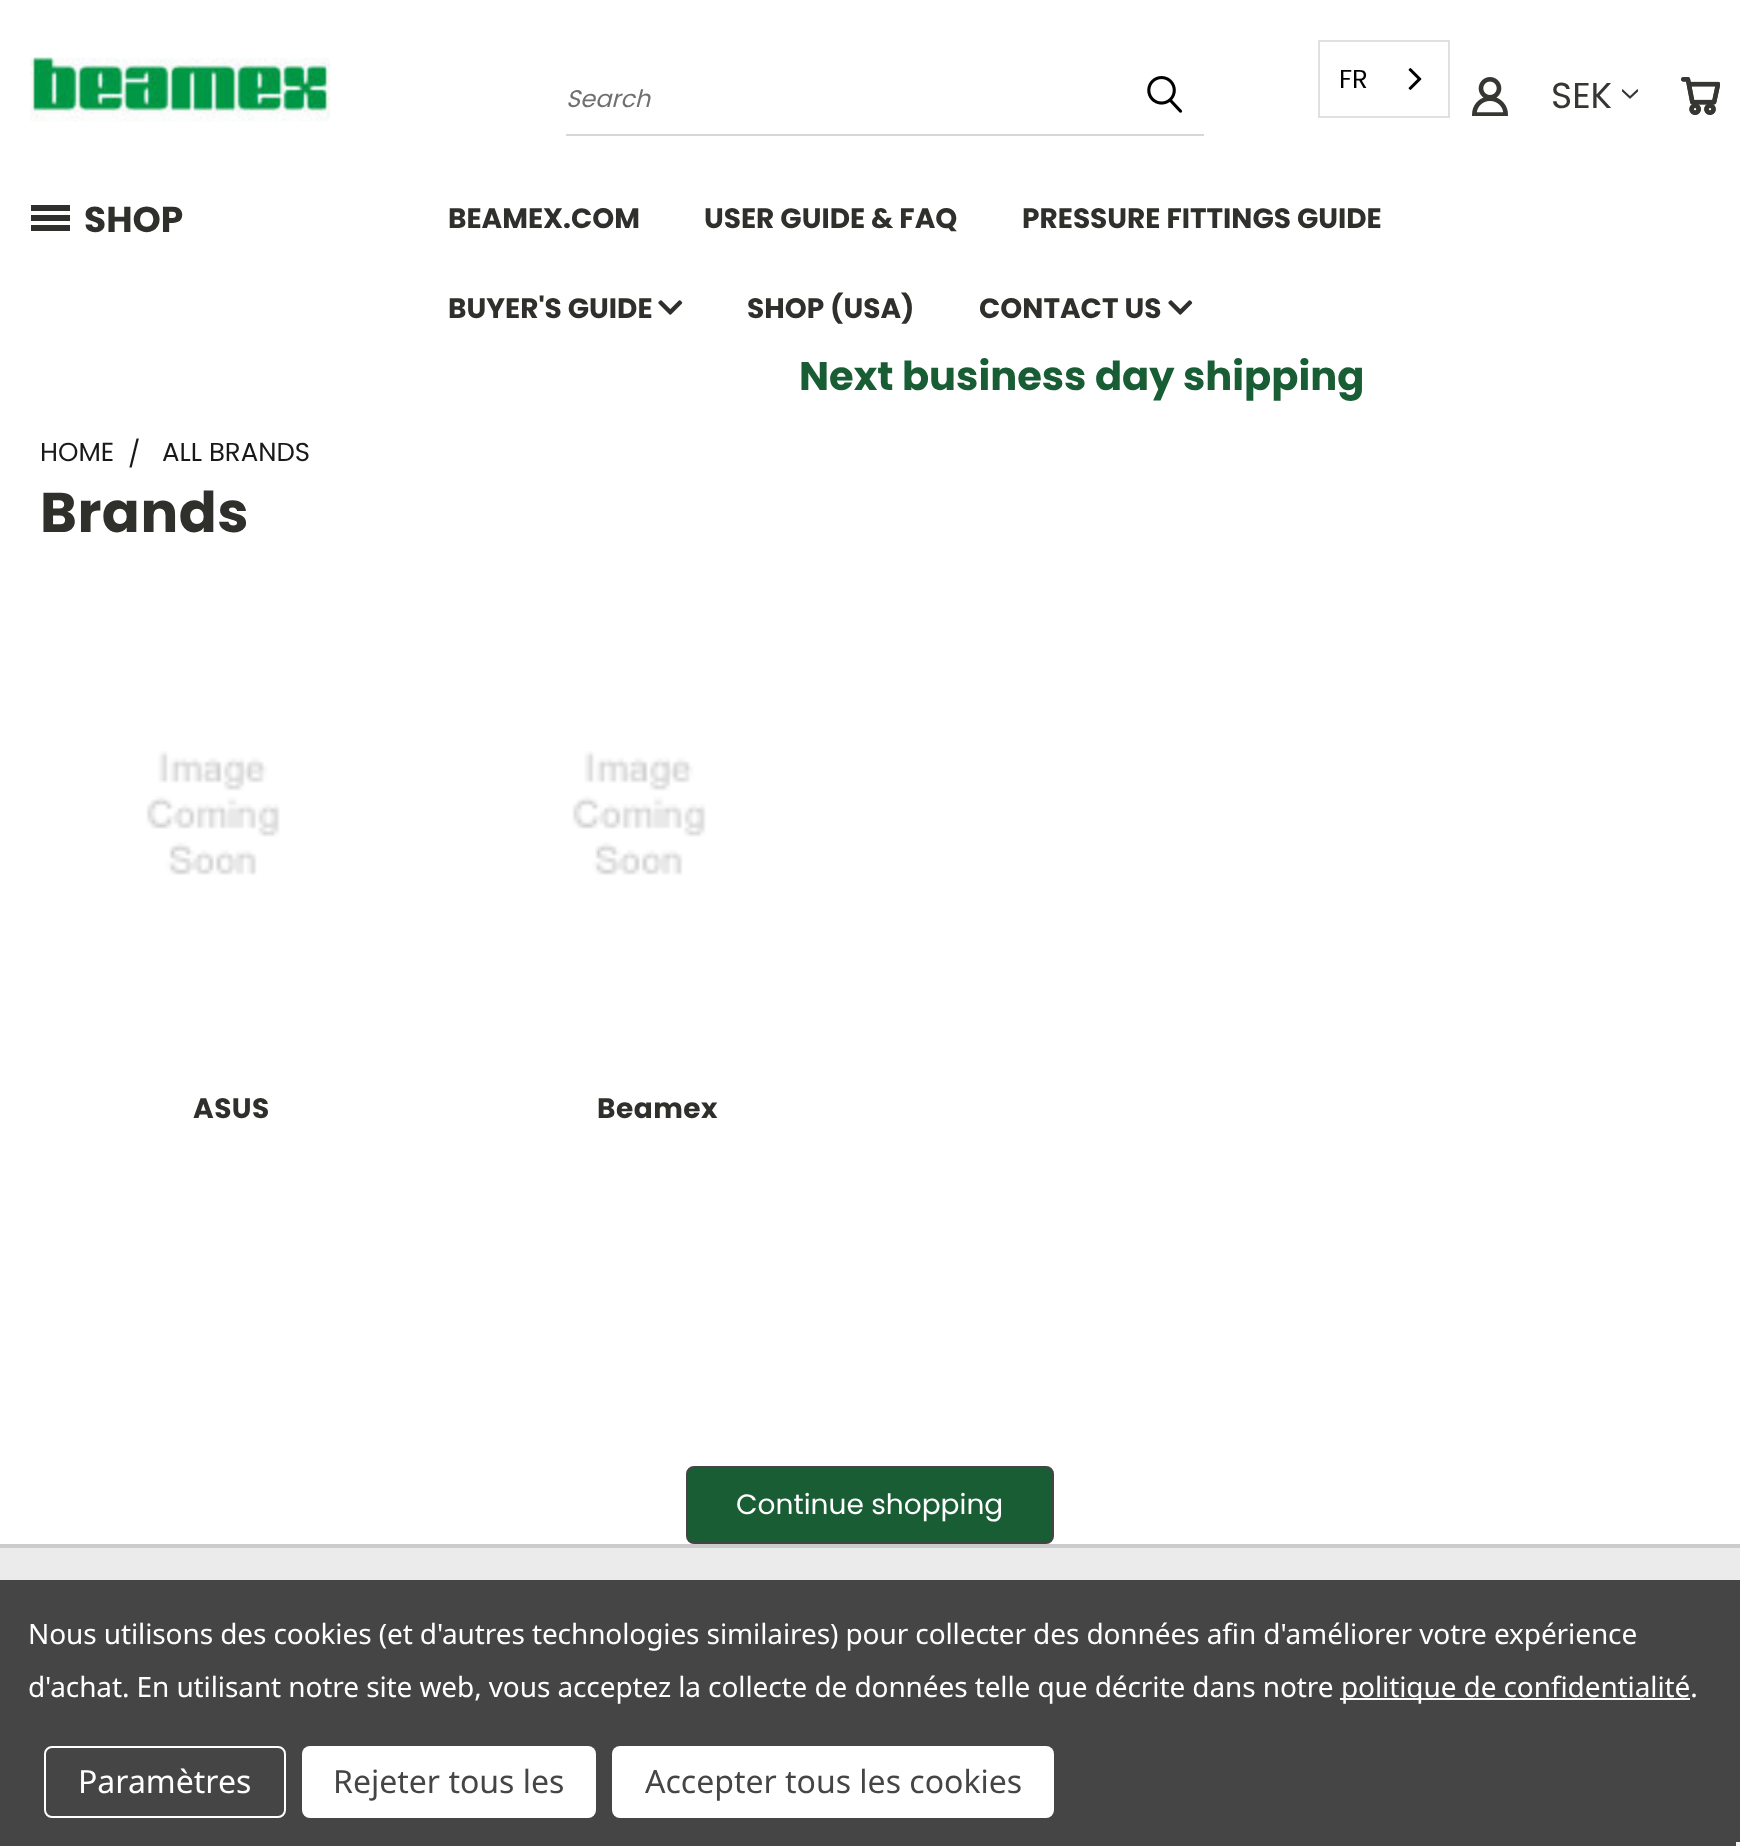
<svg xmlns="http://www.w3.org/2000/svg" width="1740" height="1846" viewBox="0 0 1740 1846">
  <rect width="100%" height="100%" fill="rgb(255,255,255)"/>
  <image x="30" y="57" width="300" height="65" href="pic1.png"/>
  <rect x="566" y="134" width="638" height="2" fill="rgb(215,215,215)"/>
  <text x="566" y="107" font-family="Poppins" font-size="24" font-style="italic" fill="rgb(112,112,110)">Search</text>
  <image x="1147" y="76" width="36" height="37" href="pic2.png"/>
  <rect x="1319" y="41" width="130" height="76" fill="none" stroke="rgb(224,224,224)" stroke-width="2"/>
  <text x="1339" y="88" font-family="Poppins" font-size="26" fill="rgb(0,0,0)">FR</text>
  <image x="1408" y="68" width="14" height="22" href="pic3.png"/>
  <image x="1472" y="77" width="36" height="39" href="pic4.png"/>
  <text x="1551" y="108" font-family="Poppins" font-size="36" fill="rgb(54,54,51)">SEK</text>
  <image x="1622" y="89" width="16" height="10" href="pic5.png"/>
  <image x="1681" y="77" width="39" height="38" href="pic6.png"/>
  <image x="31" y="205" width="39" height="26" href="pic7.png"/>
  <text x="84" y="232" font-family="Poppins" font-size="36" font-weight="bold" fill="rgb(47,47,43)">SHOP</text>
  <g font-family="Poppins" font-size="28" font-weight="bold" fill="rgb(47,47,43)">
    <text x="448" y="228">BEAMEX.COM</text>
    <text x="704" y="228">USER GUIDE &amp; FAQ</text>
    <text x="1022" y="228">PRESSURE FITTINGS GUIDE</text>
    <text x="448" y="318">BUYER'S GUIDE</text>
  </g>
  <image x="658" y="300" width="25" height="15" href="pic8.png"/>
  <g font-family="Poppins" font-size="28" font-weight="bold" fill="rgb(47,47,43)">
    <text x="747" y="318">SHOP (USA)</text>
    <text x="979" y="318">CONTACT US</text>
  </g>
  <image x="1168" y="300" width="25" height="15" href="pic8.png"/>
  <text x="799" y="390" font-family="Poppins" font-size="40" font-weight="bold" fill="rgb(24,93,52)">Next business day shipping</text>
  <g font-family="Poppins" font-size="26" fill="rgb(25,25,25)">
    <text x="40" y="461">HOME</text>
    <text x="128" y="463">/</text>
    <text x="162" y="461">ALL BRANDS</text>
  </g>
  <text x="40" y="532" font-family="Poppins" font-size="56" font-weight="bold" letter-spacing="0.5" fill="rgb(47,47,43)">Brands</text>
  <image x="146" y="751" width="134" height="124" href="pic9.png"/>
  <text x="193" y="1118" font-family="Poppins" font-size="28" font-weight="bold" letter-spacing="0.5" fill="rgb(47,47,43)">ASUS</text>
  <image x="572" y="751" width="134" height="124" href="pic9.png"/>
  <text x="597" y="1118" font-family="Poppins" font-size="28" font-weight="bold" letter-spacing="0.5" fill="rgb(47,47,43)">Beamex</text>
  <rect x="687" y="1467" width="366" height="76" rx="7" fill="rgb(24,93,52)" stroke="rgb(68,68,68)" stroke-width="2"/>
  <text x="736" y="1514" font-family="Poppins" font-size="28" fill="rgb(255,255,255)">Continue shopping</text>
  <rect x="0" y="1548" width="1740" height="32" fill="rgb(235,235,235)"/>
  <rect x="0" y="1544" width="1740" height="4" fill="rgb(205,204,204)"/>
  <rect x="0" y="1580" width="1740" height="266" fill="rgb(69,69,69)"/>
  <g font-family="Noto Sans" font-size="28" letter-spacing="-0.1" fill="rgb(255,255,255)">
    <text>
      <tspan x="28" y="1644">Nous utilisons des cookies (et d'autres technologies similaires) pour collecter des données afin d'améliorer votre expérience</tspan>
      <tspan x="28" y="1697">d'achat. En utilisant notre site web, vous acceptez la collecte de données telle que décrite dans notre</tspan>
    </text>
  </g>
  <rect x="1340" y="1698" width="350" height="2" fill="rgb(255,255,255)"/>
  <text x="1341" y="1697" font-family="Noto Sans" font-size="28" letter-spacing="-0.1" fill="rgb(255,255,255)">politique de confidentialité.</text>
  <rect x="45" y="1747" width="240" height="70" rx="7" fill="none" stroke="rgb(255,255,255)" stroke-width="2"/>
  <text x="78" y="1793" font-family="Noto Sans" font-size="32" fill="rgb(255,255,255)">Paramètres</text>
  <rect x="302" y="1746" width="294" height="72" rx="8" fill="rgb(255,255,255)"/>
  <text x="333" y="1793" font-family="Noto Sans" font-size="32" fill="rgb(69,69,69)">Rejeter tous les</text>
  <rect x="612" y="1746" width="442" height="72" rx="8" fill="rgb(255,255,255)"/>
  <text x="645" y="1793" font-family="Noto Sans" font-size="32" fill="rgb(69,69,69)">Accepter tous les cookies</text>
  <rect x="1736" y="1842" width="4" height="4" fill="rgb(245,245,245)"/>
</svg>
